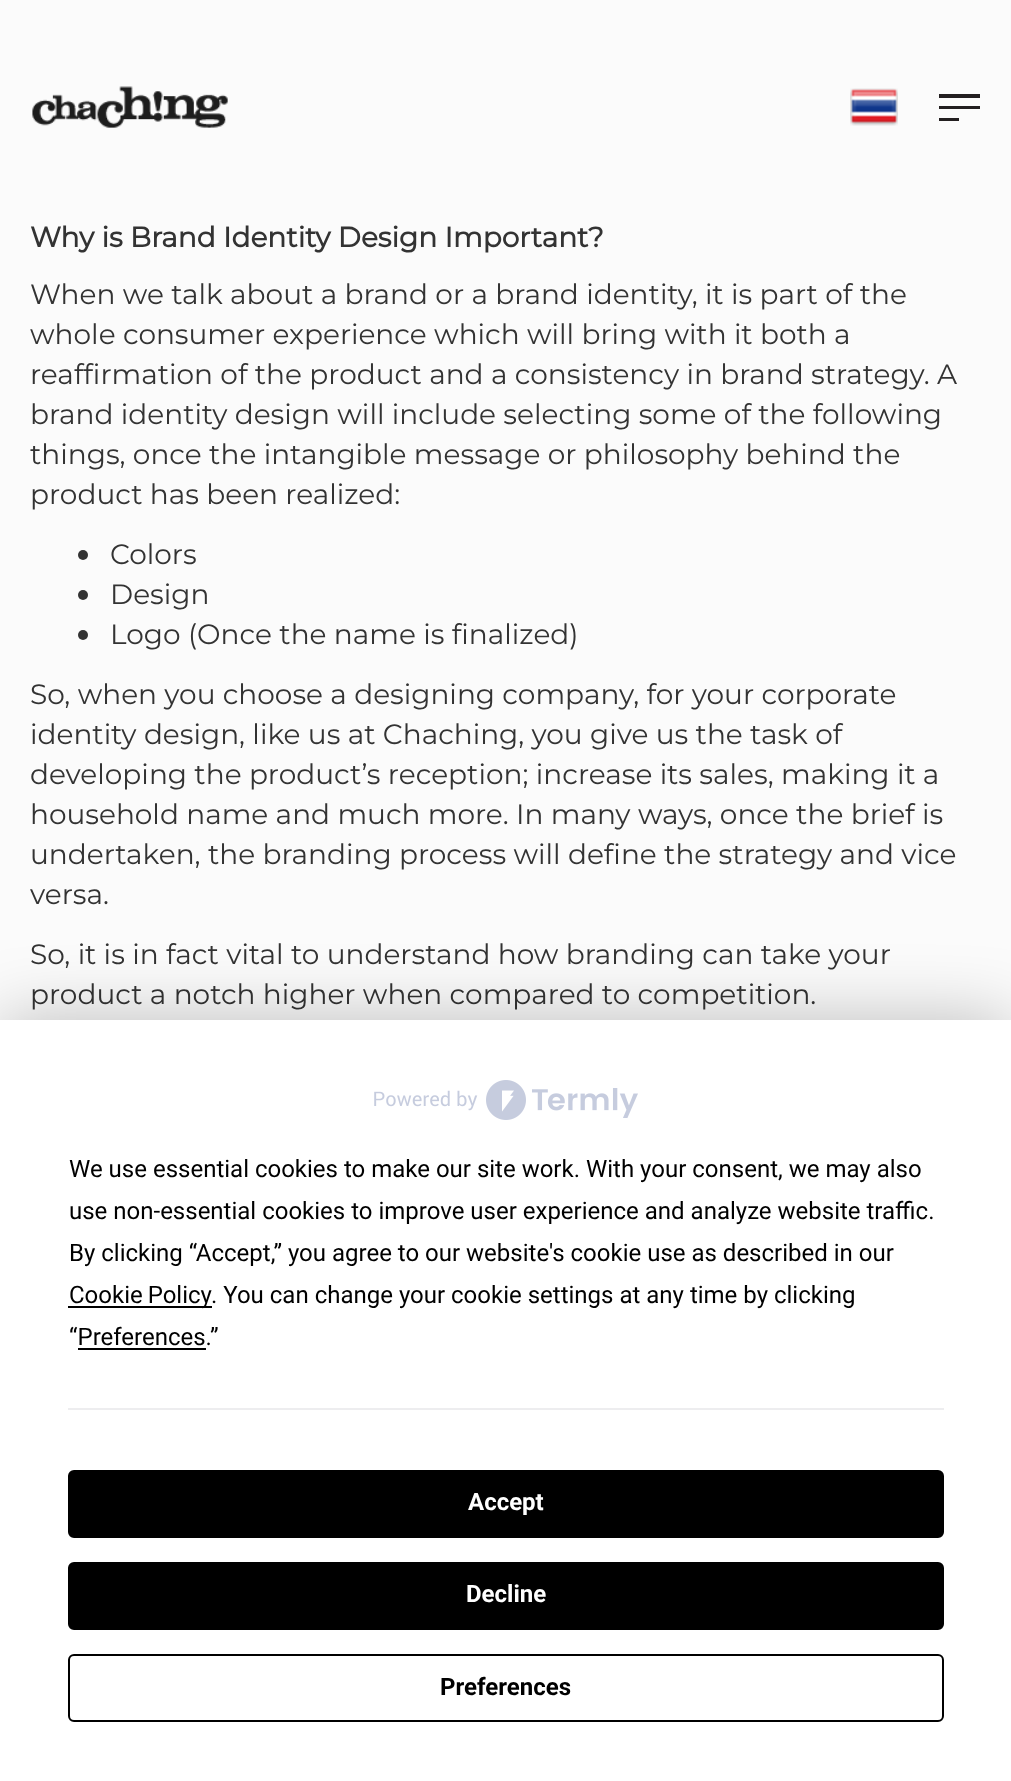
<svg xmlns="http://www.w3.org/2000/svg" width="1011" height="1781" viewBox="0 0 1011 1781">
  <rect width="100%" height="100%" fill="rgb(251,251,251)"/>
  <image x="32" y="86" width="196" height="42" href="pic1.png"/>
  <image x="850" y="88" width="48" height="38" href="pic2.png"/>
  <rect x="939" y="94" width="41" height="4" fill="rgb(35,31,32)"/>
  <rect x="939" y="106" width="41" height="3" fill="rgb(35,31,32)"/>
  <rect x="939" y="118" width="20" height="3" fill="rgb(35,31,32)"/>
  <text x="30" y="247" font-family="Montserrat" font-size="28" font-weight="bold" fill="rgb(51,51,51)">Why is Brand Identity Design Important?</text>
  <g font-family="Montserrat" font-size="28" font-weight="100" fill="rgb(51,51,51)">
    <text>
      <tspan x="30" y="304">When we talk about a brand or a brand identity, it is part of the</tspan>
      <tspan x="30" y="344">whole consumer experience which will bring with it both a</tspan>
      <tspan x="30" y="384">reaffirmation of the product and a consistency in brand strategy. A</tspan>
      <tspan x="30" y="424">brand identity design will include selecting some of the following</tspan>
      <tspan x="30" y="464">things, once the intangible message or philosophy behind the</tspan>
      <tspan x="30" y="504">product has been realized:</tspan>
    </text>
  </g>
  <circle cx="83" cy="555" r="5" fill="rgb(51,51,51)"/>
  <text x="110" y="564" font-family="Montserrat" font-size="28" font-weight="100" fill="rgb(51,51,51)">Colors</text>
  <circle cx="83" cy="595" r="5" fill="rgb(51,51,51)"/>
  <text x="110" y="604" font-family="Montserrat" font-size="28" font-weight="100" fill="rgb(51,51,51)">Design</text>
  <circle cx="83" cy="635" r="5" fill="rgb(51,51,51)"/>
  <g font-family="Montserrat" font-size="28" font-weight="100" fill="rgb(51,51,51)">
    <text x="110" y="644">Logo (Once the name is finalized)</text>
    <text>
      <tspan x="30" y="704">So, when you choose a designing company, for your corporate</tspan>
      <tspan x="30" y="744">identity design, like us at Chaching, you give us the task of</tspan>
      <tspan x="30" y="784">developing the product’s reception; increase its sales, making it a</tspan>
      <tspan x="30" y="824">household name and much more. In many ways, once the brief is</tspan>
      <tspan x="30" y="864">undertaken, the branding process will define the strategy and vice</tspan>
      <tspan x="30" y="904">versa.</tspan>
    </text>
    <text>
      <tspan x="30" y="964">So, it is in fact vital to understand how branding can take your</tspan>
      <tspan x="30" y="1004">product a notch higher when compared to competition.</tspan>
    </text>
  </g>
  <rect x="0" y="1020" width="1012" height="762" fill="rgba(0,0,0,0.25)" filter="blur(35px)"/>
  <rect x="0" y="1020" width="1011" height="761" fill="rgb(255,255,255)"/>
  <image x="374" y="1080" width="264" height="40" href="pic3.png"/>
  <g font-family="Roboto" font-size="24" fill="rgb(0,0,0)">
    <text>
      <tspan x="69" y="1177">We use essential cookies to make our site work. With your consent, we may also</tspan>
      <tspan x="69" y="1219">use non-essential cookies to improve user experience and analyze website traffic.</tspan>
      <tspan x="69" y="1261">By clicking “Accept,” you agree to our website's cookie use as described in our</tspan>
    </text>
  </g>
  <rect x="68" y="1306" width="144" height="2" fill="rgb(0,0,0)"/>
  <g font-family="Roboto" font-size="24" fill="rgb(0,0,0)">
    <text x="69" y="1303" word-spacing="-1">Cookie Policy</text>
    <text x="211" y="1303">. You can change your cookie settings at any time by clicking</text>
    <text x="69" y="1345">“Preferences.”</text>
  </g>
  <rect x="78" y="1348" width="128" height="2" fill="rgb(0,0,0)"/>
  <rect x="68" y="1408" width="876" height="2" fill="rgb(237,237,239)"/>
  <rect x="69" y="1471" width="874" height="66" rx="5" fill="rgb(0,0,0)" stroke="rgb(0,0,0)" stroke-width="2"/>
  <text x="468" y="1510" font-family="Roboto" font-size="24" font-weight="bold" fill="rgb(255,255,255)">Accept</text>
  <rect x="69" y="1563" width="874" height="66" rx="5" fill="rgb(0,0,0)" stroke="rgb(0,0,0)" stroke-width="2"/>
  <text x="466" y="1602" font-family="Roboto" font-size="24" font-weight="bold" fill="rgb(255,255,255)">Decline</text>
  <rect x="69" y="1655" width="874" height="66" rx="5" fill="none" stroke="rgb(0,0,0)" stroke-width="2"/>
  <text x="440" y="1695" font-family="Roboto" font-size="24" font-weight="bold" fill="rgb(0,0,0)">Preferences</text>
</svg>
